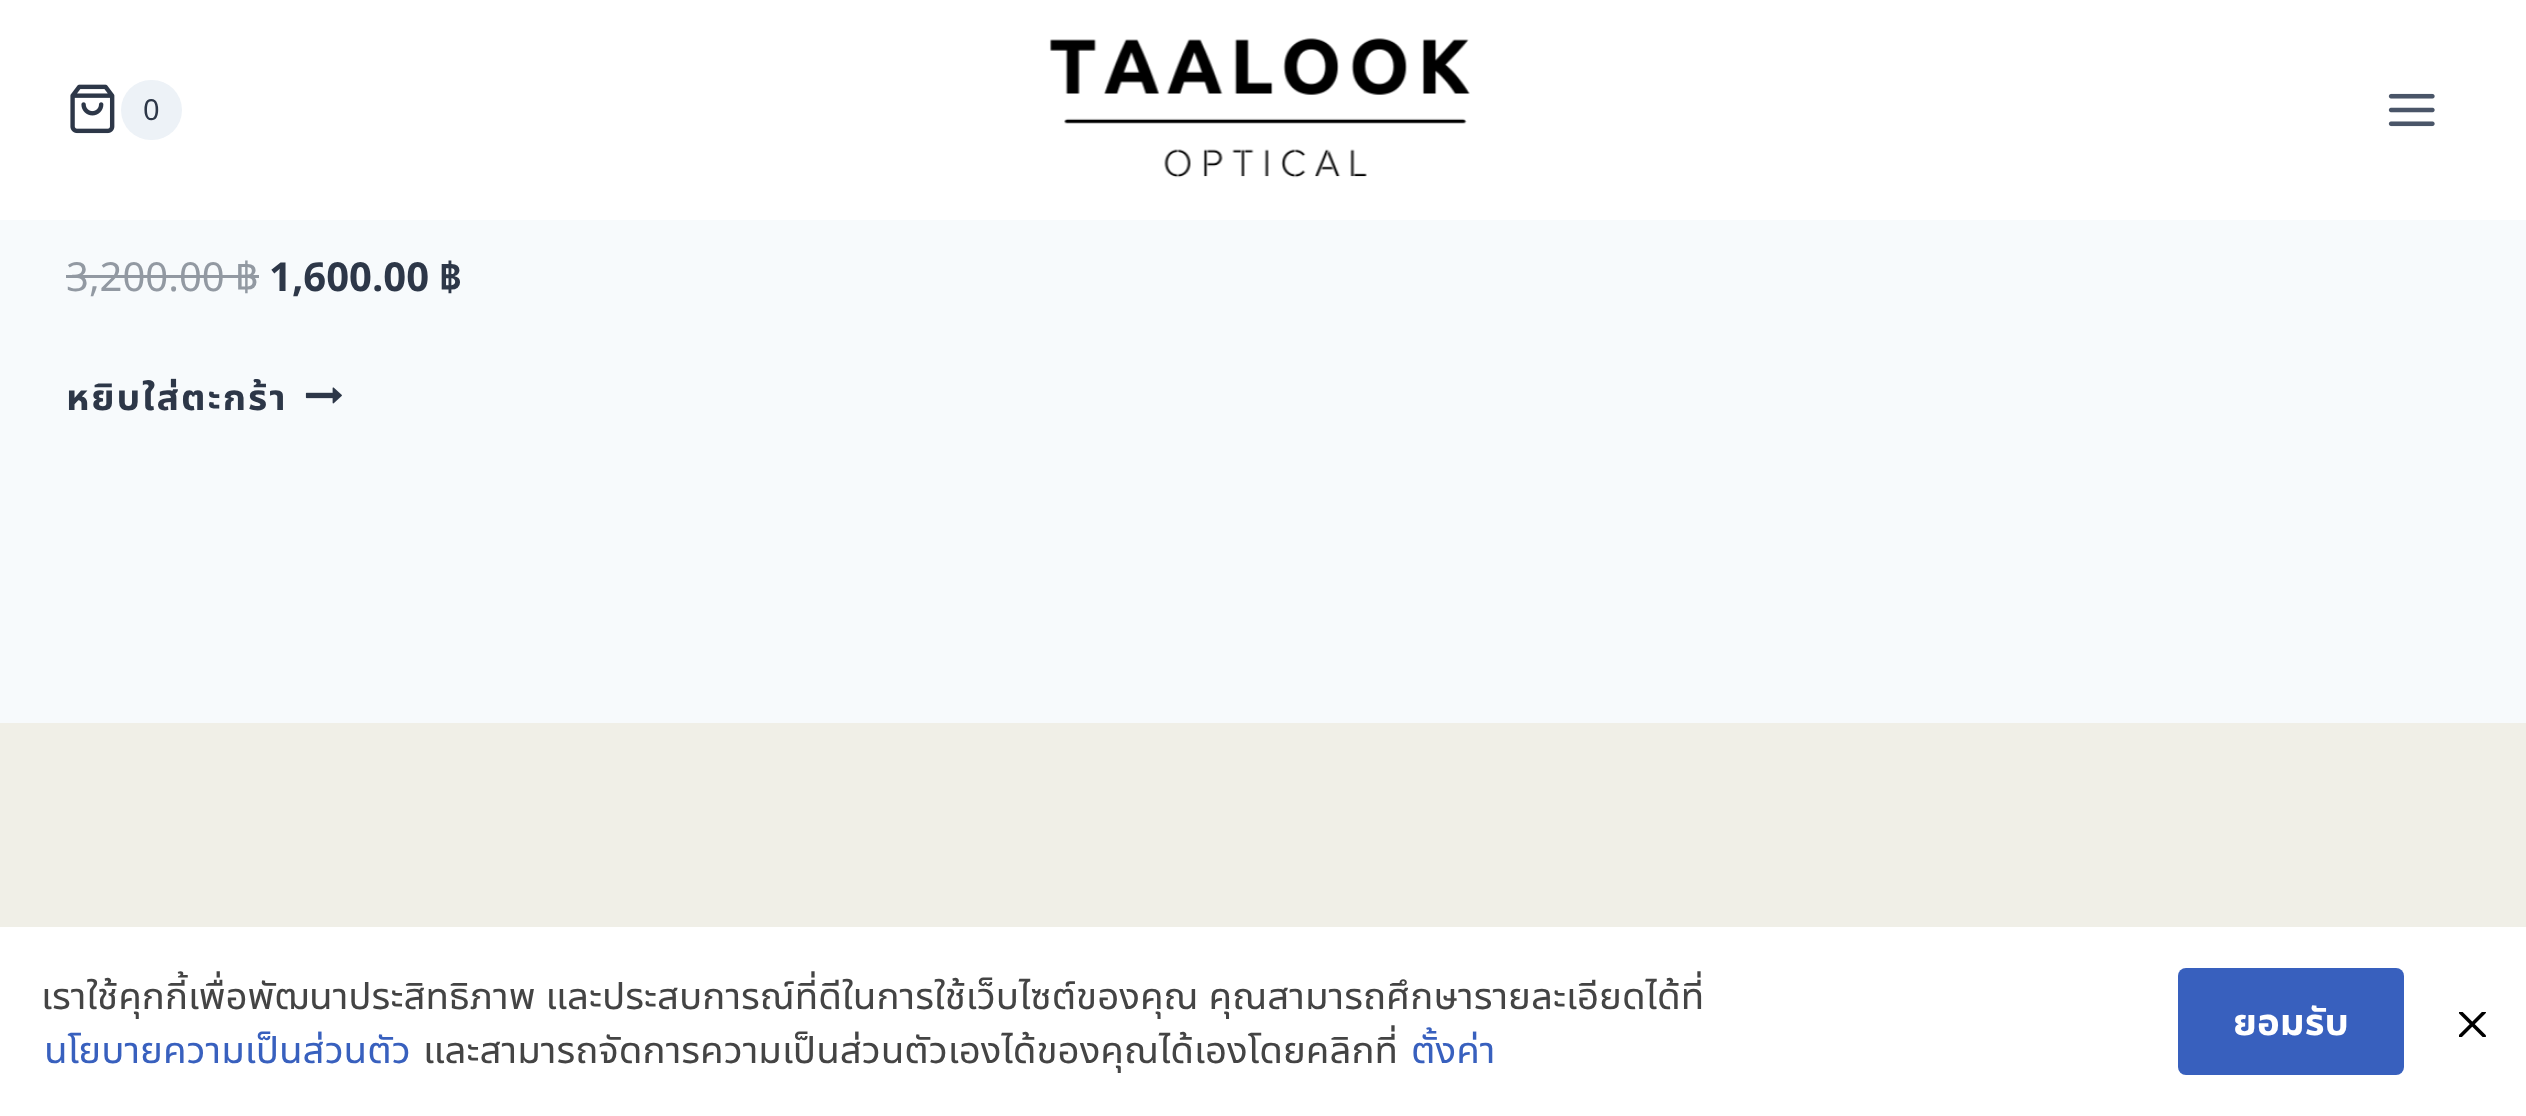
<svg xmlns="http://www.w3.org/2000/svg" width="2526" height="1116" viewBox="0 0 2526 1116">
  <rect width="100%" height="100%" fill="rgb(240,239,231)"/>
  <rect x="0" y="0" width="2526" height="220" fill="rgb(255,255,255)"/>
  <image x="70" y="84" width="45" height="50" href="pic1.png"/>
  <rect x="121" y="80" width="61" height="60" rx="30" fill="rgb(237,242,247)"/>
  <text x="143" y="120" font-family="Noto Sans Thai" font-size="29" fill="rgb(45,55,72)">0</text>
  <image x="1049" y="38" width="421" height="140" href="pic2.png"/>
  <image x="2388" y="93" width="47" height="34" href="pic3.png"/>
  <rect x="0" y="220" width="2526" height="503" fill="rgb(247,250,252)"/>
  <text x="66" y="291" font-family="Noto Sans Thai" font-size="40" fill="rgb(146,153,162)">3,200.00</text>
  <text x="235" y="291" font-family="Noto Sans Thai UI" font-size="40" fill="rgb(146,153,162)">฿</text>
  <rect x="66" y="275" width="171" height="3" fill="rgb(146,153,162)"/>
  <rect x="237" y="275" width="22" height="3" fill="rgb(146,153,162)"/>
  <text x="269" y="291" font-family="Noto Sans Thai" font-size="40" font-weight="bold" fill="rgb(45,55,72)">1,600.00</text>
  <text x="439" y="291" font-family="Noto Sans Thai UI" font-size="40" font-weight="bold" fill="rgb(45,55,72)">฿</text>
  <text x="66" y="410" font-family="Noto Sans Thai UI" font-size="37.5" font-weight="bold" letter-spacing="1.9" fill="rgb(45,55,72)">หยิบใส่ตะกร้า</text>
  <image x="305" y="387" width="37" height="17" href="pic4.png"/>
  <rect x="0" y="927" width="2526" height="189" fill="rgb(255,255,255)"/>
  <text x="41" y="1009" font-family="Noto Sans Thai UI" font-size="38.5" fill="rgb(68,68,68)">เราใช้คุกกี้เพื่อพัฒนาประสิทธิภาพ และประสบการณ์ที่ดีในการใช้เว็บไซต์ของคุณ คุณสามารถศึกษารายละเอียดได้ที่</text>
  <text x="44" y="1063" font-family="Noto Sans Thai UI" font-size="38.5" fill="rgb(56,96,190)">นโยบายความเป็นส่วนตัว</text>
  <text x="423" y="1063" font-family="Noto Sans Thai UI" font-size="38.5" fill="rgb(68,68,68)">และสามารถจัดการความเป็นส่วนตัวเองได้ของคุณได้เองโดยคลิกที่</text>
  <text x="1411" y="1063" font-family="Noto Sans Thai UI" font-size="38.5" fill="rgb(56,96,190)">ตั้งค่า</text>
  <rect x="2178" y="968" width="226" height="107" rx="8" fill="rgb(56,96,190)"/>
  <text x="2233" y="1035" font-family="Noto Sans Thai UI" font-size="38.5" font-weight="bold" fill="rgb(255,255,255)">ยอมรับ</text>
  <image x="2459" y="1012" width="27" height="25" href="pic5.png"/>
</svg>
